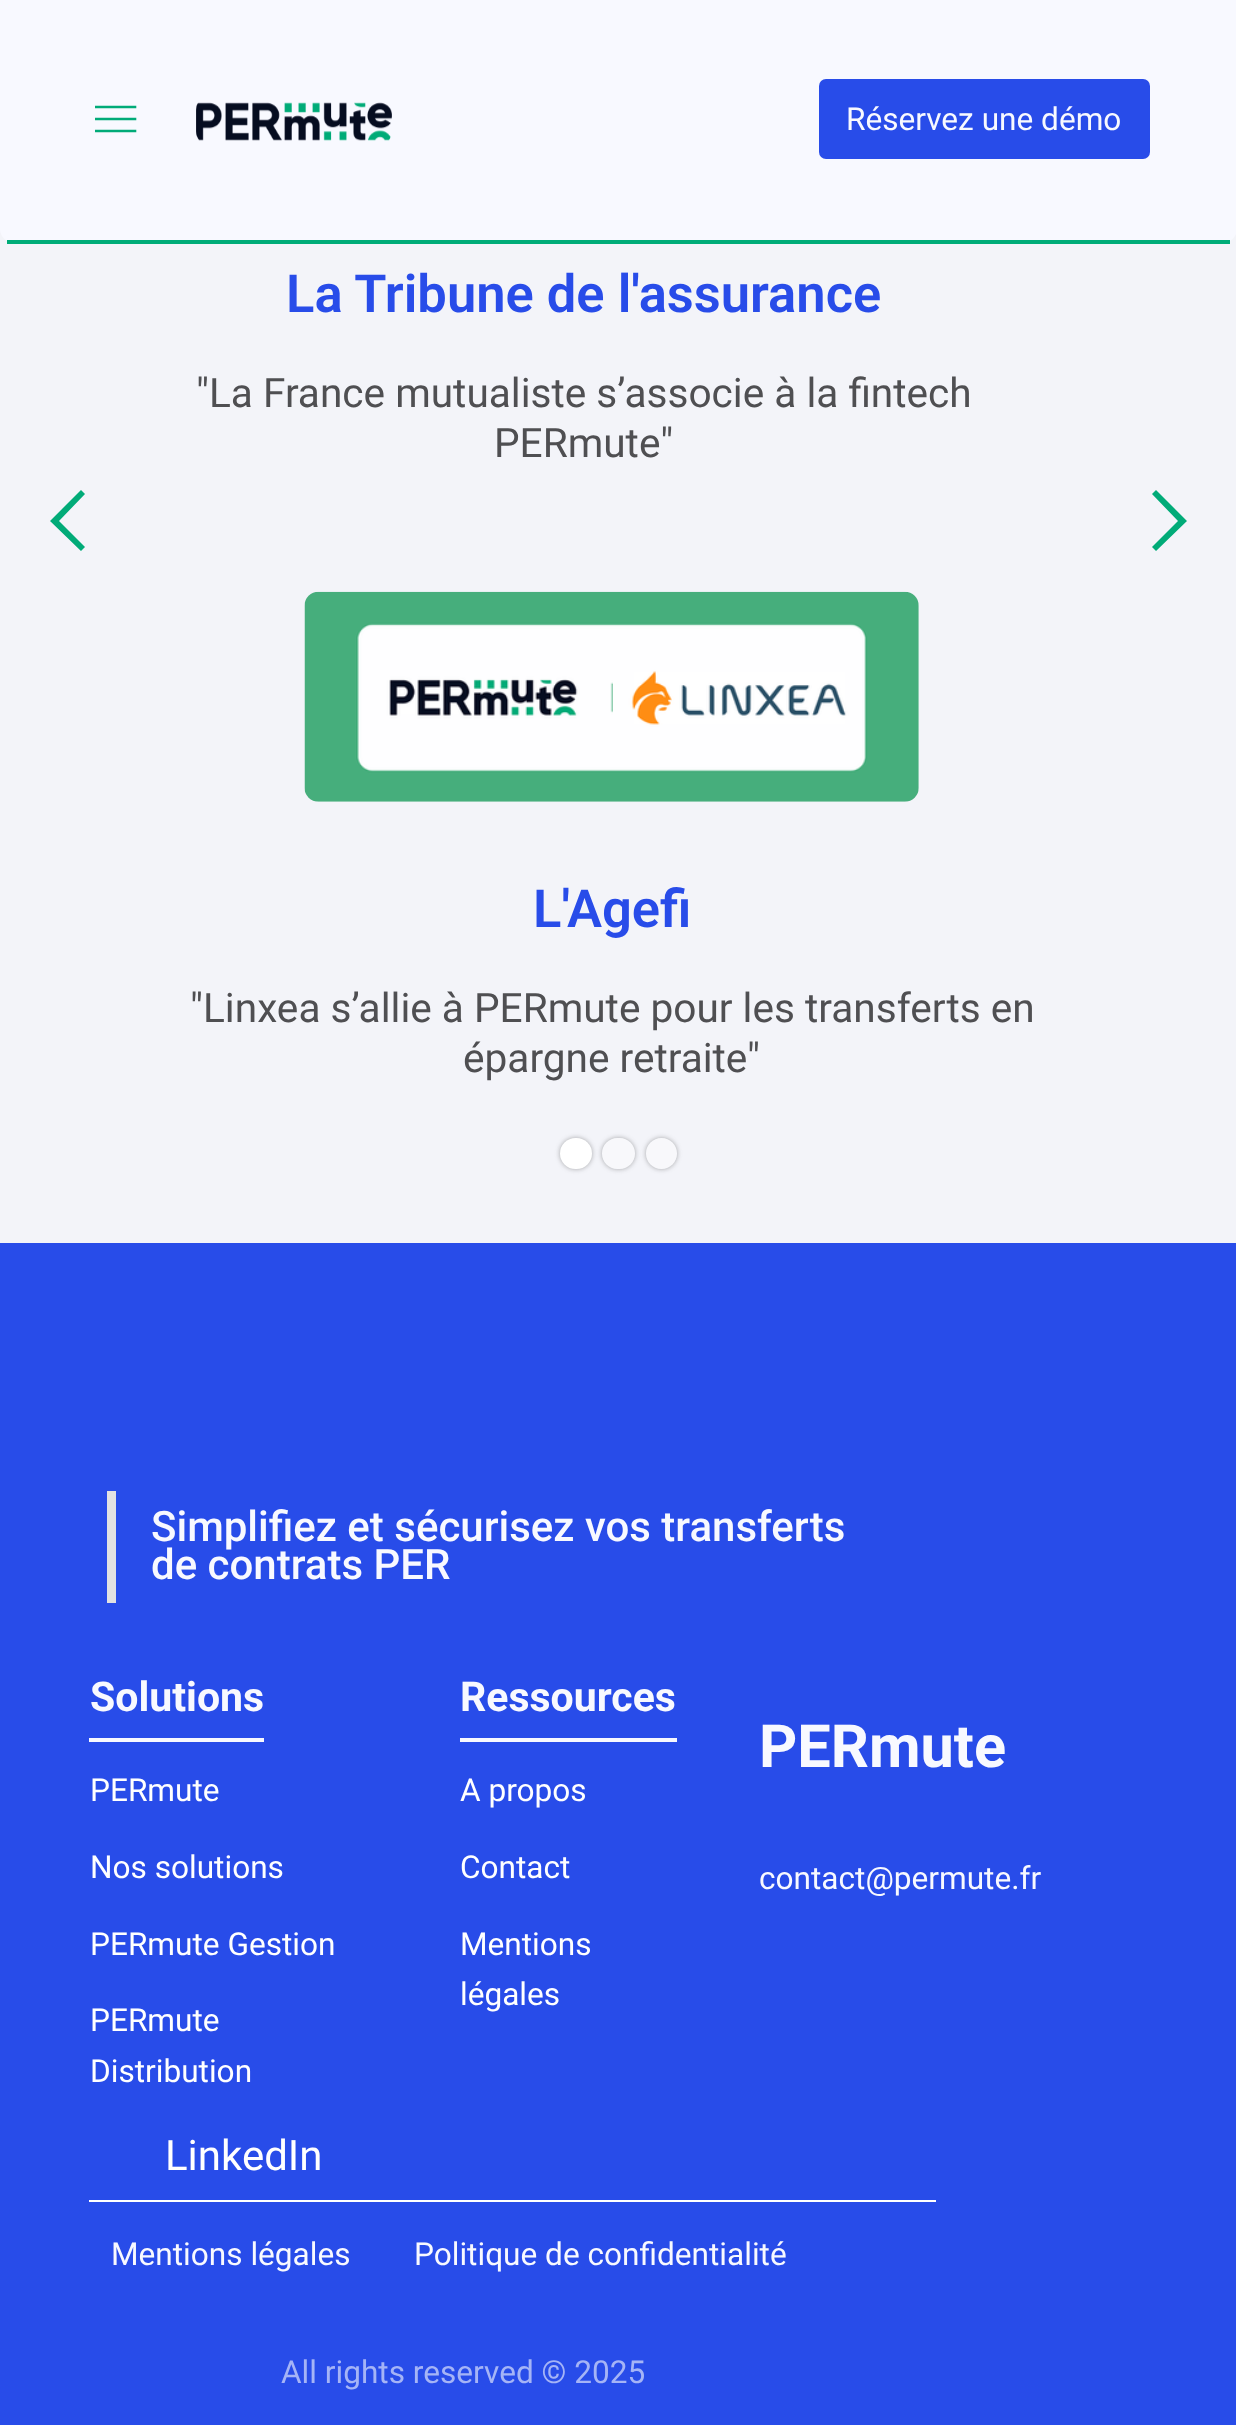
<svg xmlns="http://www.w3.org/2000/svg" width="1236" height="2425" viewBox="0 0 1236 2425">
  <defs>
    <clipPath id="clip1"><rect x="95" y="98" width="42" height="42"/></clipPath>
    <clipPath id="clip2"><path d="M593 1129H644V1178H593ZM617.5 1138H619.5C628 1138 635 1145 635 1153.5C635 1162 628 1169 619.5 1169H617.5C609 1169 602 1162 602 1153.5C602 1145 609 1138 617.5 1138Z" clip-rule="evenodd"/></clipPath>
    <clipPath id="clip3"><path d="M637 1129H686V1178H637ZM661.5 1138C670 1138 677 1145 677 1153.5C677 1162 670 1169 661.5 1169C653 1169 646 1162 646 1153.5C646 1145 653 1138 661.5 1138Z" clip-rule="evenodd"/></clipPath>
  </defs>
  <rect width="100%" height="100%" fill="rgb(40,76,233)"/>
  <rect x="0" y="229" width="1236" height="1014" fill="rgb(243,244,249)"/>
  <path d="M0 0H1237V229C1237 236.5 1230.5 243 1223 243H14C6.5 243 0 236.5 0 229Z" fill="rgb(248,249,255)"/>
  <rect x="7" y="240" width="1223" height="4" fill="rgb(0,172,120)"/>
  <g clip-path="url(#clip1)">
    <path d="M96 119H135M96 107H135M96 131H135" fill="none" stroke="rgb(1,171,120)" stroke-width="2.6" stroke-linecap="square"/>
  </g>
  <image x="196" y="102" width="196" height="39" href="pic1.png"/>
  <rect x="819" y="79" width="331" height="80" rx="7" fill="rgb(40,76,233)"/>
  <text x="846" y="130" font-family="Roboto" font-size="31.6" fill="rgb(248,249,255)">Réservez une démo</text>
  <path d="M50 521L81 490L85 494L59 521L85 547L81 551Z" fill="rgb(1,171,120)"/>
  <text x="286" y="312" font-family="Roboto" font-size="52.5" font-weight="600" fill="rgb(40,76,233)">La Tribune de l'assurance</text>
  <g font-family="Roboto" font-size="40.6" fill="rgb(79,79,82)">
    <text x="196" y="407">"La France mutualiste s’associe à la fintech</text>
    <text x="494" y="457">PERmute"</text>
  </g>
  <image x="304" y="591" width="615" height="211" href="pic2.png"/>
  <text x="533" y="927" font-family="Roboto" font-size="52.5" font-weight="600" fill="rgb(40,76,233)">L'Agefi</text>
  <g font-family="Roboto" font-size="40.6" fill="rgb(79,79,82)">
    <text x="190" y="1022">"Linxea s’allie à PERmute pour les transferts en</text>
    <text x="463" y="1072">épargne retraite"</text>
  </g>
  <path d="M1187 521L1156 490L1152 494L1178 521L1152 547L1156 551Z" fill="rgb(1,171,120)"/>
  <rect x="560" y="1138" width="32" height="31" rx="15.5" fill="rgba(51,51,51,0.4)" filter="blur(2.5px)"/>
  <rect x="560" y="1138" width="32" height="31" rx="15.5" fill="rgb(255,255,255)"/>
  <g clip-path="url(#clip2)">
    <rect x="602" y="1138" width="33" height="31" rx="15.5" fill="rgba(51,51,51,0.4)" filter="blur(2.5px)"/>
  </g>
  <rect x="602" y="1138" width="33" height="31" rx="15.5" fill="rgba(255,255,255,0.4)"/>
  <g clip-path="url(#clip3)">
    <rect x="646" y="1138" width="31" height="31" rx="15.5" fill="rgba(51,51,51,0.4)" filter="blur(2.5px)"/>
  </g>
  <circle cx="661.5" cy="1153.5" r="15.5" fill="rgba(255,255,255,0.4)"/>
  <rect x="107" y="1491" width="9" height="112" fill="rgb(226,226,226)"/>
  <g font-family="Roboto" font-size="42" font-weight="500" fill="rgb(248,249,255)">
    <text>
      <tspan x="151" y="1541">Simplifiez et sécurisez vos transferts</tspan>
      <tspan x="151" y="1579">de contrats PER</tspan>
    </text>
  </g>
  <text x="90" y="1711" font-family="Roboto" font-size="41" font-weight="bold" fill="rgb(248,249,255)">Solutions</text>
  <rect x="89" y="1738" width="175" height="4" fill="rgb(248,249,255)"/>
  <g font-family="Roboto" font-size="31.6" fill="rgb(255,255,255)">
    <text x="90" y="1801">PERmute</text>
    <text x="90" y="1878">Nos solutions</text>
    <text x="90" y="1955">PERmute Gestion</text>
    <text>
      <tspan x="90" y="2031">PERmute</tspan>
      <tspan x="90" y="2082">Distribution</tspan>
    </text>
  </g>
  <text x="460" y="1711" font-family="Roboto" font-size="41" font-weight="bold" fill="rgb(248,249,255)">Ressources</text>
  <rect x="460" y="1738" width="217" height="4" fill="rgb(248,249,255)"/>
  <g font-family="Roboto" font-size="31.6" fill="rgb(255,255,255)">
    <text x="460" y="1801">A propos</text>
    <text x="460" y="1878">Contact</text>
    <text>
      <tspan x="460" y="1955">Mentions</tspan>
      <tspan x="460" y="2005">légales</tspan>
    </text>
  </g>
  <text x="759" y="1767" font-family="Roboto" font-size="59.5" font-weight="bold" fill="rgb(248,249,255)">PERmute</text>
  <text x="759" y="1889" font-family="Roboto" font-size="31.6" fill="rgb(248,249,255)">contact@permute.fr</text>
  <text x="165" y="2170" font-family="Roboto" font-size="42" fill="rgb(255,255,255)">LinkedIn</text>
  <rect x="89" y="2200" width="847" height="2" fill="rgb(255,255,255)"/>
  <g font-family="Roboto" font-size="31.6" fill="rgb(248,249,255)">
    <text x="111" y="2265">Mentions légales</text>
    <text x="414" y="2265">Politique de confidentialité</text>
  </g>
  <text x="281" y="2383" font-family="Roboto" font-size="31.6" fill="rgb(165,180,246)">All rights reserved © 2025</text>
</svg>
